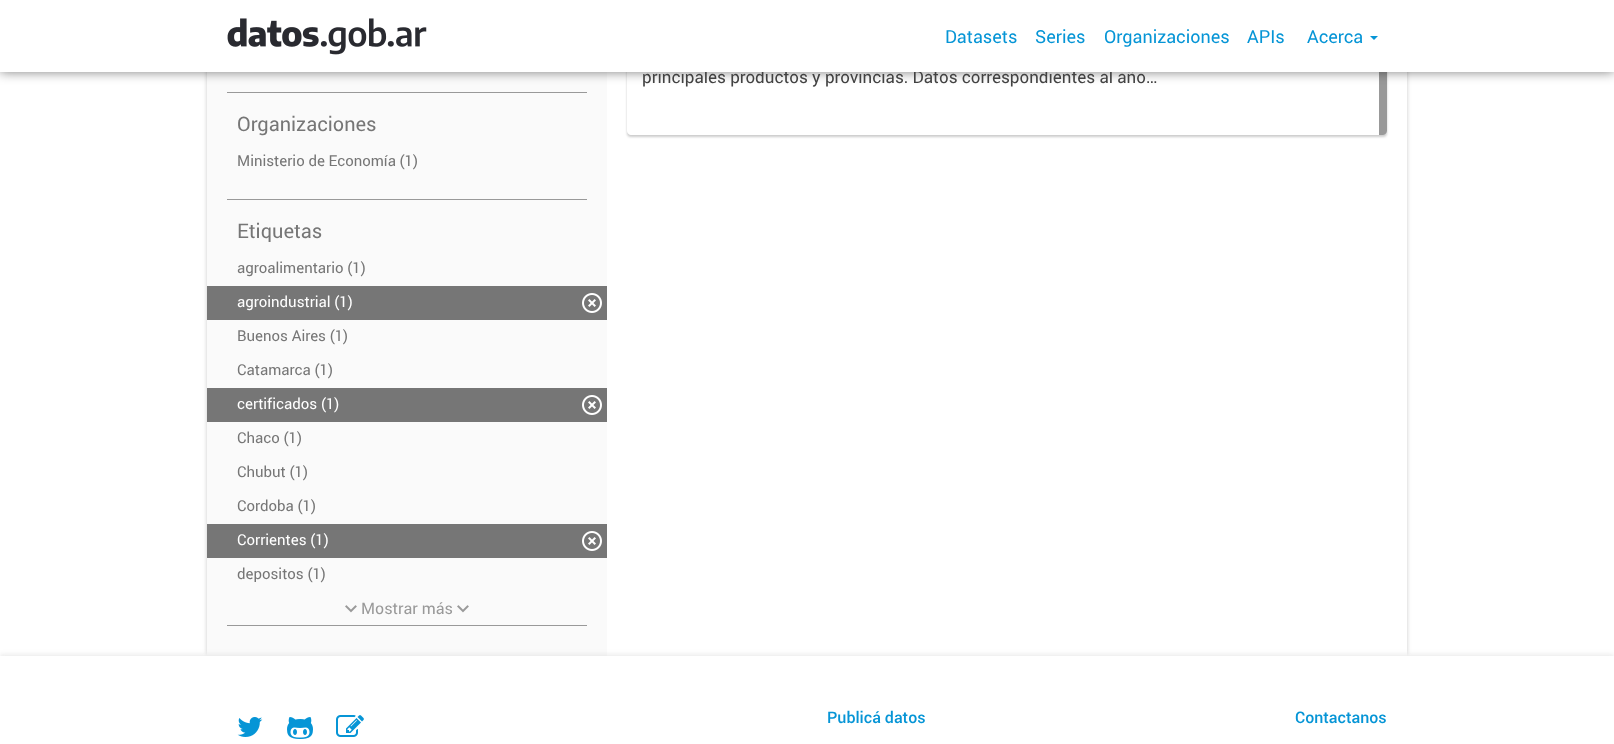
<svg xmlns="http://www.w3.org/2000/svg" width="1614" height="744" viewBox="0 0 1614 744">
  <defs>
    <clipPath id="clip1"><path d="M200 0H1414V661H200ZM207-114H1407V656H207Z" clip-rule="evenodd"/></clipPath>
    <clipPath id="clip2"><path d="M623 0H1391V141H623ZM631-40H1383C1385-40 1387-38 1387-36V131C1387 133 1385 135 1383 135H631C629 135 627 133 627 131V-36C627-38 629-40 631-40Z" clip-rule="evenodd"/></clipPath>
  </defs>
  <rect width="100%" height="100%" fill="rgb(255,255,255)"/>
  <g clip-path="url(#clip1)">
    <rect x="207" y="-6" width="1200" height="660" fill="rgba(150,150,150,0.5)" filter="blur(2px)"/>
  </g>
  <g clip-path="url(#clip2)">
    <rect x="627" y="-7" width="760" height="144" rx="4" fill="rgba(0,0,0,0.2)" filter="blur(1px)"/>
  </g>
  <path d="M1379-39V135H1383C1385 135 1387 133 1387 131V-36C1387-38 1385-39 1383-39Z" fill="rgb(153,153,153)"/>
  <rect x="207" y="72" width="400" height="584" fill="rgb(250,250,250)"/>
  <rect x="0" y="0" width="1614" height="72" fill="rgba(0,0,0,0.5)" filter="blur(6px)"/>
  <text x="642" y="83" font-family="Roboto" font-size="17" fill="rgb(66,66,66)">principales productos y provincias. Datos correspondientes al año…</text>
  <rect x="0" y="0" width="1614" height="72" fill="rgb(255,255,255)"/>
  <image x="227" y="18" width="200" height="37" href="pic1.png"/>
  <g font-family="Roboto" font-size="18" fill="rgb(6,149,214)">
    <text x="945" y="43">Datasets</text>
    <text x="1035" y="43">Series</text>
    <text x="1104" y="43">Organizaciones</text>
    <text x="1247" y="43">APIs</text>
    <text x="1307" y="43">Acerca</text>
  </g>
  <path d="M1370 36H1378L1374 40Z" fill="rgb(6,149,214)"/>
  <rect x="227" y="92" width="360" height="1" fill="rgb(153,153,153)"/>
  <text x="237" y="131" font-family="Roboto" font-size="20" fill="rgb(118,118,118)">Organizaciones</text>
  <text x="237" y="166" font-family="Roboto" font-size="15" fill="rgb(118,118,118)">Ministerio de Economía (1)</text>
  <rect x="227" y="199" width="360" height="1" fill="rgb(153,153,153)"/>
  <text x="237" y="238" font-family="Roboto" font-size="20" fill="rgb(118,118,118)">Etiquetas</text>
  <text x="237" y="273" font-family="Roboto" font-size="15" fill="rgb(118,118,118)">agroalimentario (1)</text>
  <rect x="207" y="286" width="400" height="34" fill="rgb(118,118,118)"/>
  <text x="237" y="307" font-family="Roboto" font-size="15" fill="rgb(255,255,255)">agroindustrial (1)</text>
  <image x="582" y="293" width="20" height="20" href="pic2.png"/>
  <g font-family="Roboto" font-size="15" fill="rgb(118,118,118)">
    <text x="237" y="341">Buenos Aires (1)</text>
    <text x="237" y="375">Catamarca (1)</text>
  </g>
  <rect x="207" y="388" width="400" height="34" fill="rgb(118,118,118)"/>
  <text x="237" y="409" font-family="Roboto" font-size="15" fill="rgb(255,255,255)">certificados (1)</text>
  <image x="582" y="395" width="20" height="20" href="pic2.png"/>
  <g font-family="Roboto" font-size="15" fill="rgb(118,118,118)">
    <text x="237" y="443">Chaco (1)</text>
    <text x="237" y="477">Chubut (1)</text>
    <text x="237" y="511">Cordoba (1)</text>
  </g>
  <rect x="207" y="524" width="400" height="34" fill="rgb(118,118,118)"/>
  <text x="237" y="545" font-family="Roboto" font-size="15" fill="rgb(255,255,255)">Corrientes (1)</text>
  <image x="582" y="531" width="20" height="20" href="pic2.png"/>
  <text x="237" y="579" font-family="Roboto" font-size="15" fill="rgb(118,118,118)">depositos (1)</text>
  <image x="345" y="605" width="12" height="8" href="pic3.png"/>
  <text x="361" y="614" font-family="Roboto" font-size="16" fill="rgb(153,153,153)">Mostrar más</text>
  <image x="457" y="605" width="12" height="8" href="pic3.png"/>
  <rect x="227" y="625" width="360" height="1" fill="rgb(153,153,153)"/>
  <rect x="0" y="654" width="1614" height="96" fill="rgba(220,220,220,0.5)" filter="blur(2px)"/>
  <rect x="0" y="656" width="1614" height="88" fill="rgb(255,255,255)"/>
  <image x="237" y="717" width="26" height="20" href="pic4.png"/>
  <image x="287" y="717" width="26" height="22" href="pic5.png"/>
  <image x="336" y="715" width="28" height="22" href="pic6.png"/>
  <g font-family="Roboto" font-size="16" font-weight="500" fill="rgb(6,149,214)">
    <text x="827" y="723">Publicá datos</text>
    <text x="1295" y="723">Contactanos</text>
  </g>
</svg>
